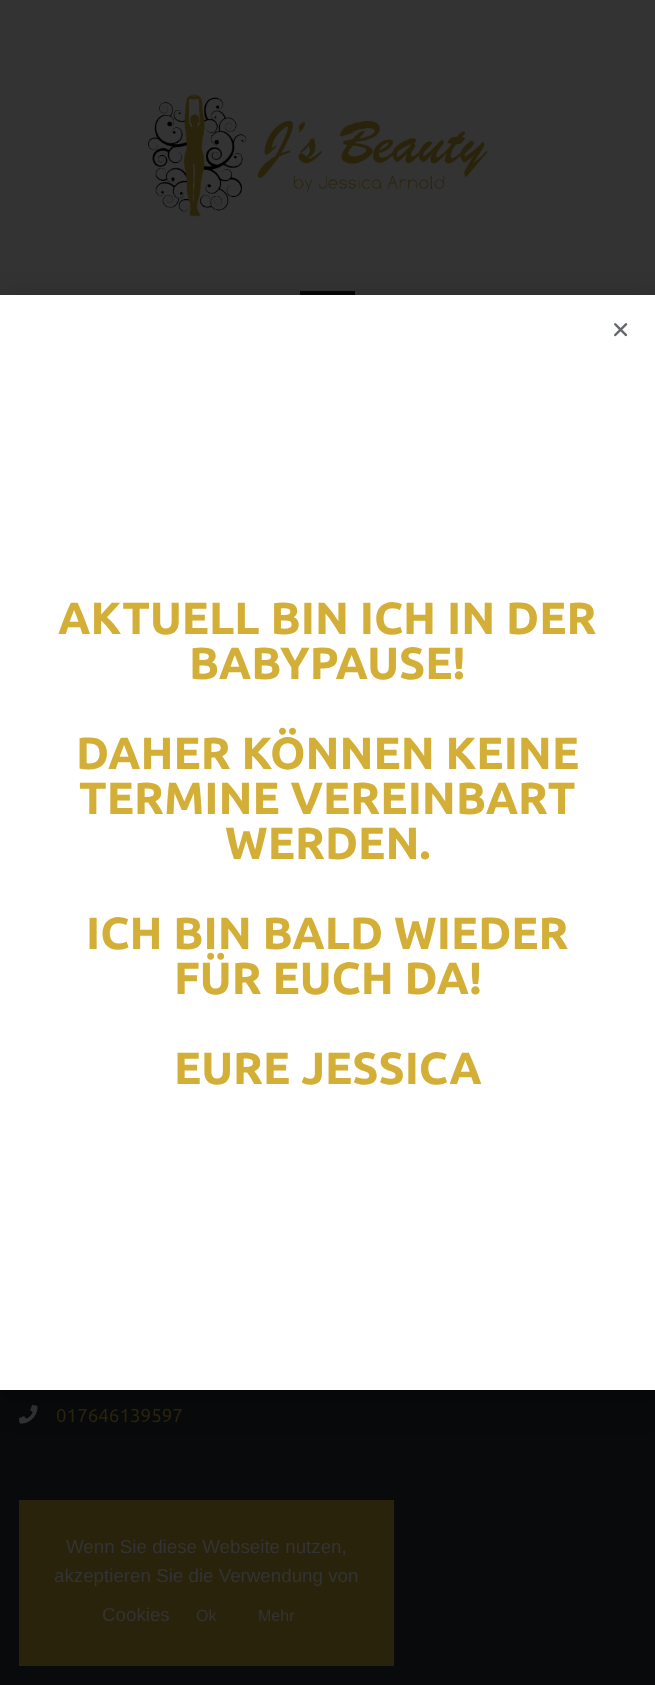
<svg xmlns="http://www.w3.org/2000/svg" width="655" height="1685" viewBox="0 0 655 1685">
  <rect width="100%" height="100%" fill="rgb(51,51,51)"/>
  <rect x="300" y="291" width="55" height="4" fill="rgb(7,8,9)"/>
  <rect x="0" y="1390" width="655" height="295" fill="rgb(8,10,11)"/>
  <image x="18" y="1404" width="20" height="20" href="pic3.png"/>
  <rect x="-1" y="301" width="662" height="1103" fill="rgba(0,0,0,0.2)" filter="blur(14.5px)"/>
  <rect x="0" y="295" width="655" height="1095" fill="rgb(255,255,255)"/>
  <image x="614" y="323" width="14" height="14" href="pic1.png"/>
  <g font-family="Ubuntu" font-size="45" font-weight="bold" fill="rgb(212,175,55)">
    <text x="58" y="634">AKTUELL BIN ICH IN DER</text>
    <text x="189" y="679">BABYPAUSE!</text>
    <text x="76" y="769">DAHER KÖNNEN KEINE</text>
    <text x="79" y="814">TERMINE VEREINBART</text>
    <text x="225" y="859">WERDEN.</text>
    <text x="86" y="949">ICH BIN BALD WIEDER</text>
    <text x="174" y="994">FÜR EUCH DA!</text>
    <text x="174" y="1084">EURE JESSICA</text>
  </g>
  <image x="147" y="94" width="341" height="123" href="pic2.png"/>
  <text x="56" y="1422" font-family="Ubuntu" font-size="18.75" fill="rgb(42,35,11)">017646139597</text>
  <rect x="19" y="1500" width="375" height="166" fill="rgb(42,35,11)"/>
  <g font-family="Liberation Sans" font-size="18.75" fill="rgb(51,51,51)">
    <text x="66" y="1553">Wenn Sie diese Webseite nutzen,</text>
    <text x="54" y="1582">akzeptieren Sie die Verwendung von</text>
    <text x="102" y="1621">Cookies</text>
  </g>
  <g font-family="Liberation Sans" font-size="16" fill="rgb(51,51,51)">
    <text x="196" y="1621">Ok</text>
    <text x="258" y="1621">Mehr</text>
  </g>
</svg>
